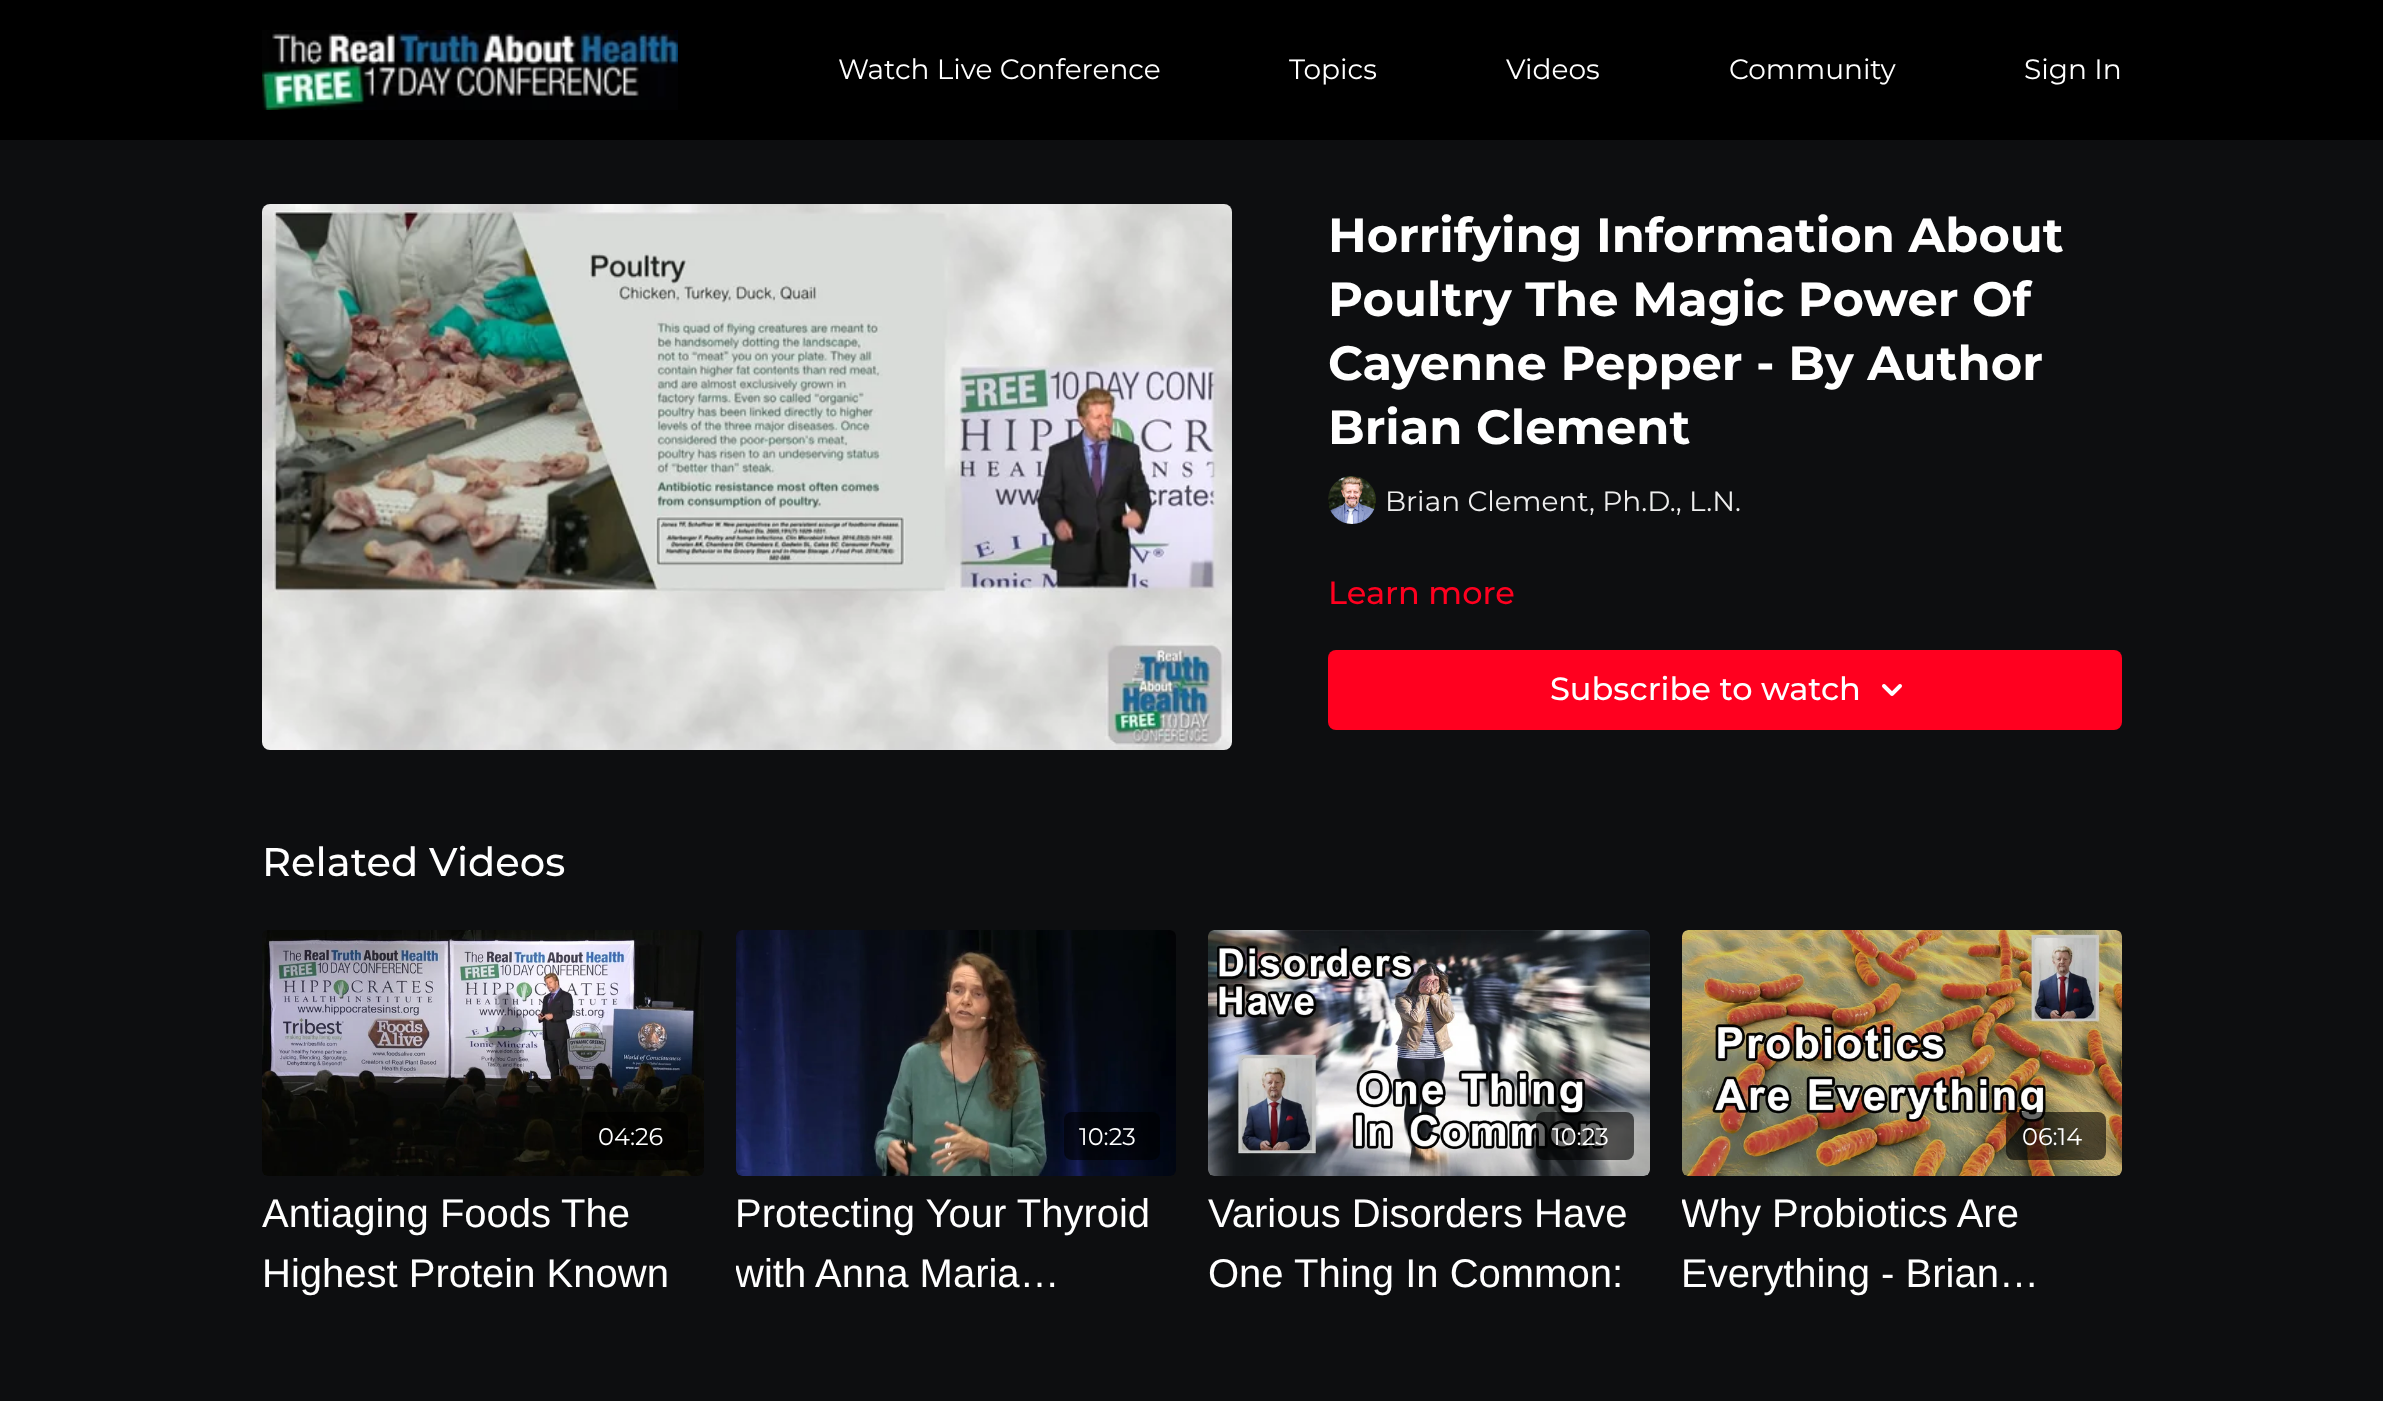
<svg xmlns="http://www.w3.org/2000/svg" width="2383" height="1401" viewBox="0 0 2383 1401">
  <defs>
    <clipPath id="clip1"><rect x="736" y="1182" width="440" height="120"/></clipPath>
    <clipPath id="clip2"><rect x="1682" y="1182" width="440" height="120"/></clipPath>
  </defs>
  <rect width="100%" height="100%" fill="rgb(13,14,16)"/>
  <rect x="0" y="0" width="2383" height="140" fill="rgb(0,0,0)"/>
  <image x="262" y="30" width="416" height="80" href="pic1.png"/>
  <g font-family="Montserrat" font-size="28" fill="rgb(255,255,255)">
    <text x="838" y="79">Watch Live Conference</text>
    <text x="1289" y="79">Topics</text>
    <text x="1506" y="79">Videos</text>
    <text x="1729" y="79">Community</text>
    <text x="2024" y="79">Sign In</text>
  </g>
  <image x="262" y="204" width="970" height="546" href="pic2.png"/>
  <g font-family="Montserrat" font-size="48" font-weight="bold" fill="rgb(255,255,255)">
    <text>
      <tspan x="1328" y="252">Horrifying Information About</tspan>
      <tspan x="1328" y="316">Poultry The Magic Power Of</tspan>
      <tspan x="1328" y="380">Cayenne Pepper - By Author</tspan>
      <tspan x="1328" y="444">Brian Clement</tspan>
    </text>
  </g>
  <image x="1328" y="476" width="48" height="48" href="pic3.png"/>
  <text x="1385" y="511" font-family="Montserrat" font-size="28" fill="rgb(238,238,238)">Brian Clement, Ph.D., L.N.</text>
  <text x="1328" y="604" font-family="Montserrat" font-size="32" font-weight="500" fill="rgb(255,0,31)">Learn more</text>
  <rect x="1328" y="650" width="794" height="80" rx="8" fill="rgb(255,0,31)"/>
  <text x="1550" y="700" font-family="Montserrat" font-size="32" font-weight="500" fill="rgb(255,255,255)">Subscribe to watch</text>
  <image x="1882" y="684" width="20" height="12" href="pic4.png"/>
  <text x="262" y="876" font-family="Montserrat" font-size="40" font-weight="500" fill="rgb(255,255,255)">Related Videos</text>
  <image x="262" y="930" width="442" height="246" href="pic5.png"/>
  <rect x="582" y="1112" width="106" height="48" rx="8" fill="rgba(0,0,0,0.6)"/>
  <text x="598" y="1145" font-family="Montserrat" font-size="24" fill="rgb(255,255,255)">04:26</text>
  <g font-family="Liberation Sans" font-size="40" fill="rgb(255,255,255)">
    <text x="262" y="1227">Antiaging Foods</text>
    <text x="561" y="1227">The</text>
    <text x="262" y="1287">Highest Protein Known</text>
  </g>
  <image x="736" y="930" width="440" height="246" href="pic6.png"/>
  <rect x="1064" y="1112" width="96" height="48" rx="8" fill="rgba(0,0,0,0.6)"/>
  <text x="1079" y="1145" font-family="Montserrat" font-size="24" fill="rgb(255,255,255)">10:23</text>
  <text x="735" y="1227" font-family="Liberation Sans" font-size="40" fill="rgb(255,255,255)">Protecting Your Thyroid</text>
  <g clip-path="url(#clip1)">
    <text x="735" y="1287" font-family="Liberation Sans" font-size="40" fill="rgb(255,255,255)">with Anna Maria…</text>
  </g>
  <image x="1208" y="930" width="442" height="246" href="pic7.png"/>
  <rect x="1536" y="1112" width="98" height="48" rx="8" fill="rgba(0,0,0,0.6)"/>
  <text x="1552" y="1145" font-family="Montserrat" font-size="24" fill="rgb(255,255,255)">10:23</text>
  <g font-family="Liberation Sans" font-size="40" fill="rgb(255,255,255)">
    <text>
      <tspan x="1208" y="1227">Various Disorders Have</tspan>
      <tspan x="1208" y="1287">One Thing In Common:</tspan>
    </text>
  </g>
  <image x="1682" y="930" width="440" height="246" href="pic8.png"/>
  <rect x="2006" y="1112" width="100" height="48" rx="8" fill="rgba(0,0,0,0.6)"/>
  <text x="2022" y="1145" font-family="Montserrat" font-size="24" fill="rgb(255,255,255)">06:14</text>
  <g clip-path="url(#clip2)">
    <text x="1681" y="1227" font-family="Liberation Sans" font-size="40" fill="rgb(255,255,255)">Why Probiotics Are</text>
  </g>
  <text x="1681" y="1287" font-family="Liberation Sans" font-size="40" fill="rgb(255,255,255)">Everything - Brian…</text>
</svg>
